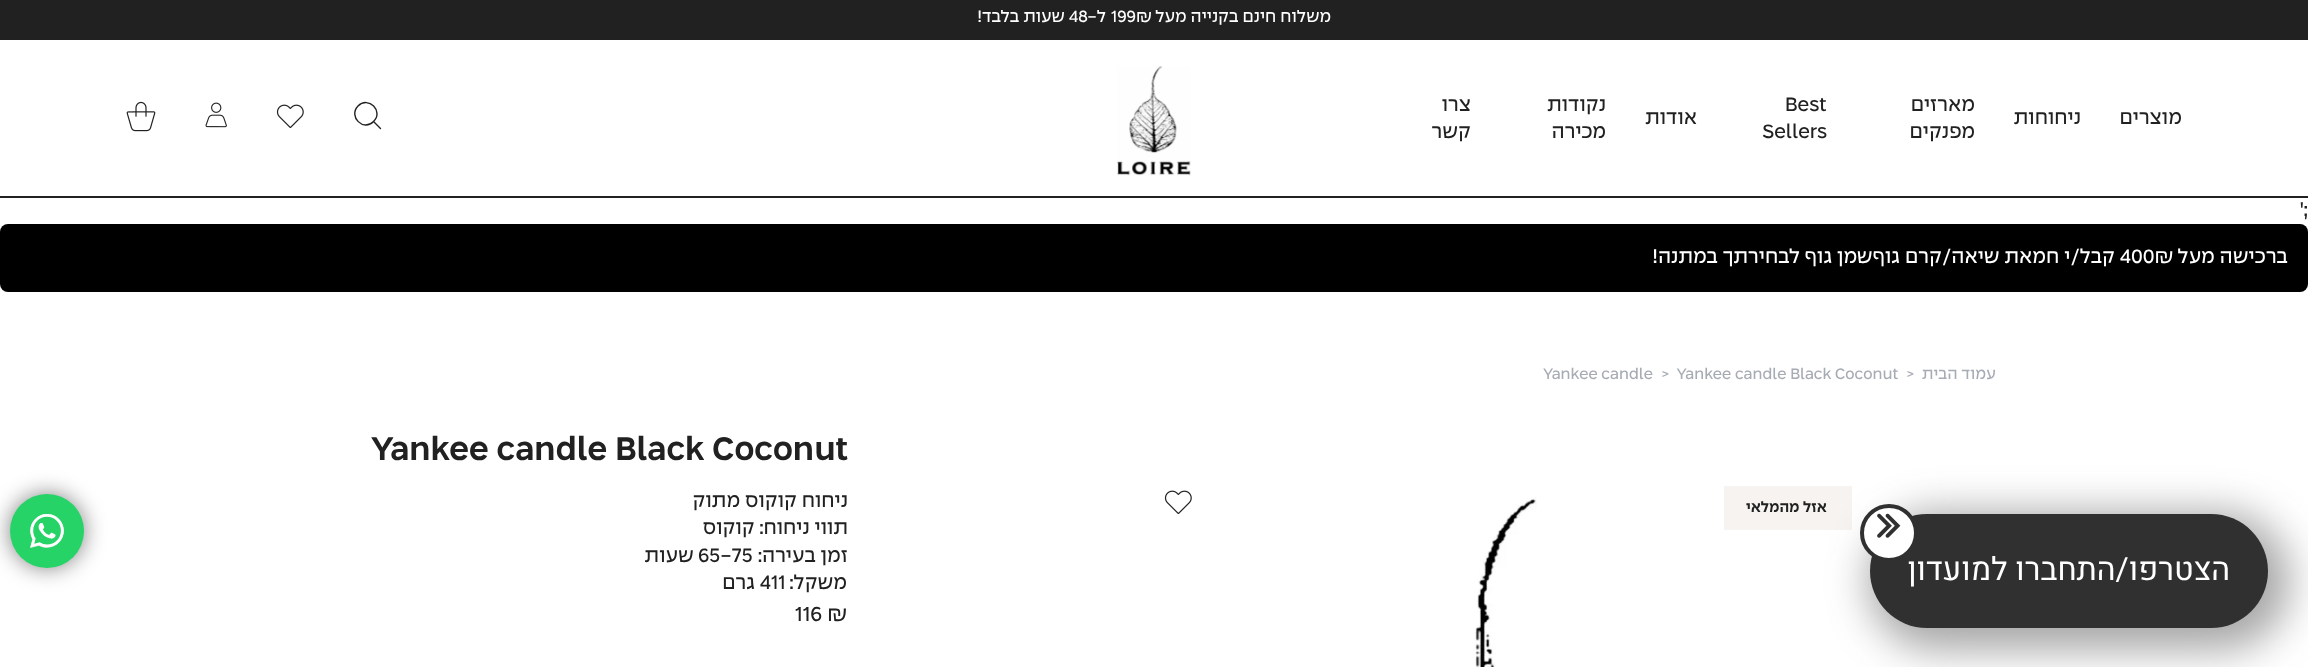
<svg xmlns="http://www.w3.org/2000/svg" width="2308" height="667" viewBox="0 0 2308 667">
  <rect width="100%" height="100%" fill="rgb(255,255,255)"/>
  <rect x="0" y="196" width="2308" height="2" fill="rgb(33,33,33)"/>
  <rect x="0" y="0" width="2308" height="40" fill="rgb(33,33,33)"/>
  <text x="1331" y="22" font-family="'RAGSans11'" font-size="19.25" direction="rtl" fill="rgb(255,255,255)">משלוח חינם בקנייה מעל</text>
  <text x="1111" y="22" font-family="'RAGSans11'" font-size="19.25" fill="rgb(255,255,255)">199₪</text>
  <text x="1106" y="22" font-family="'RAGSans11'" font-size="19.25" direction="rtl" fill="rgb(255,255,255)">ל-</text>
  <text x="1069" y="22" font-family="'RAGSans11'" font-size="19.25" fill="rgb(255,255,255)">48</text>
  <text x="1065" y="22" font-family="'RAGSans11'" font-size="19.25" direction="rtl" fill="rgb(255,255,255)">שעות בלבד!</text>
  <g font-family="'RAGSans11'" font-size="22.85" direction="rtl" fill="rgb(33,33,33)">
    <text x="2182" y="124">מוצרים</text>
    <text x="2081" y="124">ניחוחות</text>
    <text>
      <tspan x="1975" y="111">מארזים</tspan>
      <tspan x="1975" y="138">מפנקים</tspan>
    </text>
  </g>
  <g font-family="'RAGSans11'" font-size="22.85" fill="rgb(33,33,33)">
    <text x="1785" y="111">Best</text>
    <text x="1762" y="138">Sellers</text>
  </g>
  <g font-family="'RAGSans11'" font-size="22.85" direction="rtl" fill="rgb(33,33,33)">
    <text x="1697" y="124">אודות</text>
    <text>
      <tspan x="1606" y="111">נקודות</tspan>
      <tspan x="1606" y="138">מכירה</tspan>
    </text>
    <text>
      <tspan x="1471" y="111">צרו</tspan>
      <tspan x="1471" y="138">קשר</tspan>
    </text>
  </g>
  <image x="1117" y="66" width="74" height="110" href="pic1.png"/>
  <path d="M373.5 121.5C363.5 132 348 116.5 358 106C368.5 95.5 384 111.5 373.5 121.5Z" fill="none" stroke="rgb(33,33,33)" stroke-width="1.4"/>
  <path d="M374 122L380.5 128.5" fill="none" stroke="rgb(33,33,33)" stroke-width="1.4" stroke-linecap="round"/>
  <image x="276" y="104" width="28" height="24" href="pic2.png"/>
  <image x="205" y="102" width="22" height="26" href="pic3.png"/>
  <image x="126" y="101" width="30" height="31" href="pic4.png"/>
  <text x="2300" y="216" font-family="'RAGSans11'" font-size="22.85" fill="rgb(33,33,33)">';</text>
  <rect x="0" y="224" width="2308" height="68" rx="8" fill="rgb(0,0,0)"/>
  <text x="2288" y="263" font-family="'RAGSans11'" font-size="22.85" direction="rtl" fill="rgb(255,255,255)">ברכישה מעל</text>
  <text x="2120" y="263" font-family="'RAGSans11'" font-size="22.85" fill="rgb(255,255,255)">400₪</text>
  <text x="2115" y="263" font-family="'RAGSans11'" font-size="22.85" direction="rtl" fill="rgb(255,255,255)">קבל/י חמאת שיאה/קרם גוףשמן גוף לבחירתך במתנה!</text>
  <text x="1996" y="379" font-family="'RAGSans11'" font-size="18" direction="rtl" fill="rgb(167,171,180)">עמוד הבית</text>
  <g font-family="'RAGSans11'" font-size="18" fill="rgb(167,171,180)">
    <text x="1906" y="379">&gt;</text>
    <text x="1661" y="379" xml:space="preserve">&gt;  Yankee candle Black Coconut</text>
    <text x="1543" y="379">Yankee candle</text>
  </g>
  <rect x="1724" y="486" width="128" height="44" fill="rgb(246,243,240)"/>
  <text x="1827" y="512" font-family="'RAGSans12'" font-size="17" font-weight="600" direction="rtl" fill="rgb(33,33,33)">אזל מהמלאי</text>
  <image x="1474" y="497" width="63" height="170" href="pic5.png"/>
  <image x="1164" y="490" width="28" height="24" href="pic2.png"/>
  <text x="371" y="460" font-family="'RAGSans12'" font-size="38.5" font-weight="600" fill="rgb(33,33,33)">Yankee candle Black Coconut</text>
  <g font-family="'RAGSans11'" font-size="22.85" direction="rtl" fill="rgb(33,33,33)">
    <text>
      <tspan x="848" y="507">ניחוח קוקוס מתוק</tspan>
      <tspan x="848" y="534">תווי ניחוח: קוקוס</tspan>
      <tspan x="848" y="562">זמן בעירה:</tspan>
    </text>
  </g>
  <text x="698" y="562" font-family="'RAGSans11'" font-size="22.85" fill="rgb(33,33,33)">65-75</text>
  <g font-family="'RAGSans11'" font-size="22.85" direction="rtl" fill="rgb(33,33,33)">
    <text x="694" y="562">שעות</text>
    <text x="847" y="589">משקל:</text>
  </g>
  <text x="760" y="589" font-family="'RAGSans11'" font-size="22.85" fill="rgb(33,33,33)">411</text>
  <text x="755" y="589" font-family="'RAGSans11'" font-size="22.85" direction="rtl" fill="rgb(33,33,33)">גרם</text>
  <text x="795" y="621" font-family="'RAGSans11'" font-size="24" fill="rgb(33,33,33)">116 ₪</text>
  <rect x="10" y="494" width="74" height="74" rx="37" fill="rgba(0,0,0,0.5)" filter="blur(11px)"/>
  <circle cx="47" cy="531" r="37" fill="rgb(37,211,102)"/>
  <image x="30" y="514" width="34" height="34" href="pic6.png"/>
  <rect x="1868" y="512" width="422" height="138" rx="69" fill="rgba(66,66,66,0.47)" filter="blur(20px)"/>
  <rect x="1870" y="514" width="398" height="114" rx="57" fill="rgb(48,48,48)"/>
  <circle cx="1889" cy="533" r="27" fill="rgb(255,255,255)" stroke="rgb(48,48,48)" stroke-width="4"/>
  <image x="1877" y="513" width="24" height="25" href="pic7.png"/>
  <text x="2230" y="580" font-family="Heebo" font-size="32" direction="rtl" fill="rgb(255,255,255)">הצטרפו/התחברו למועדון</text>
</svg>
